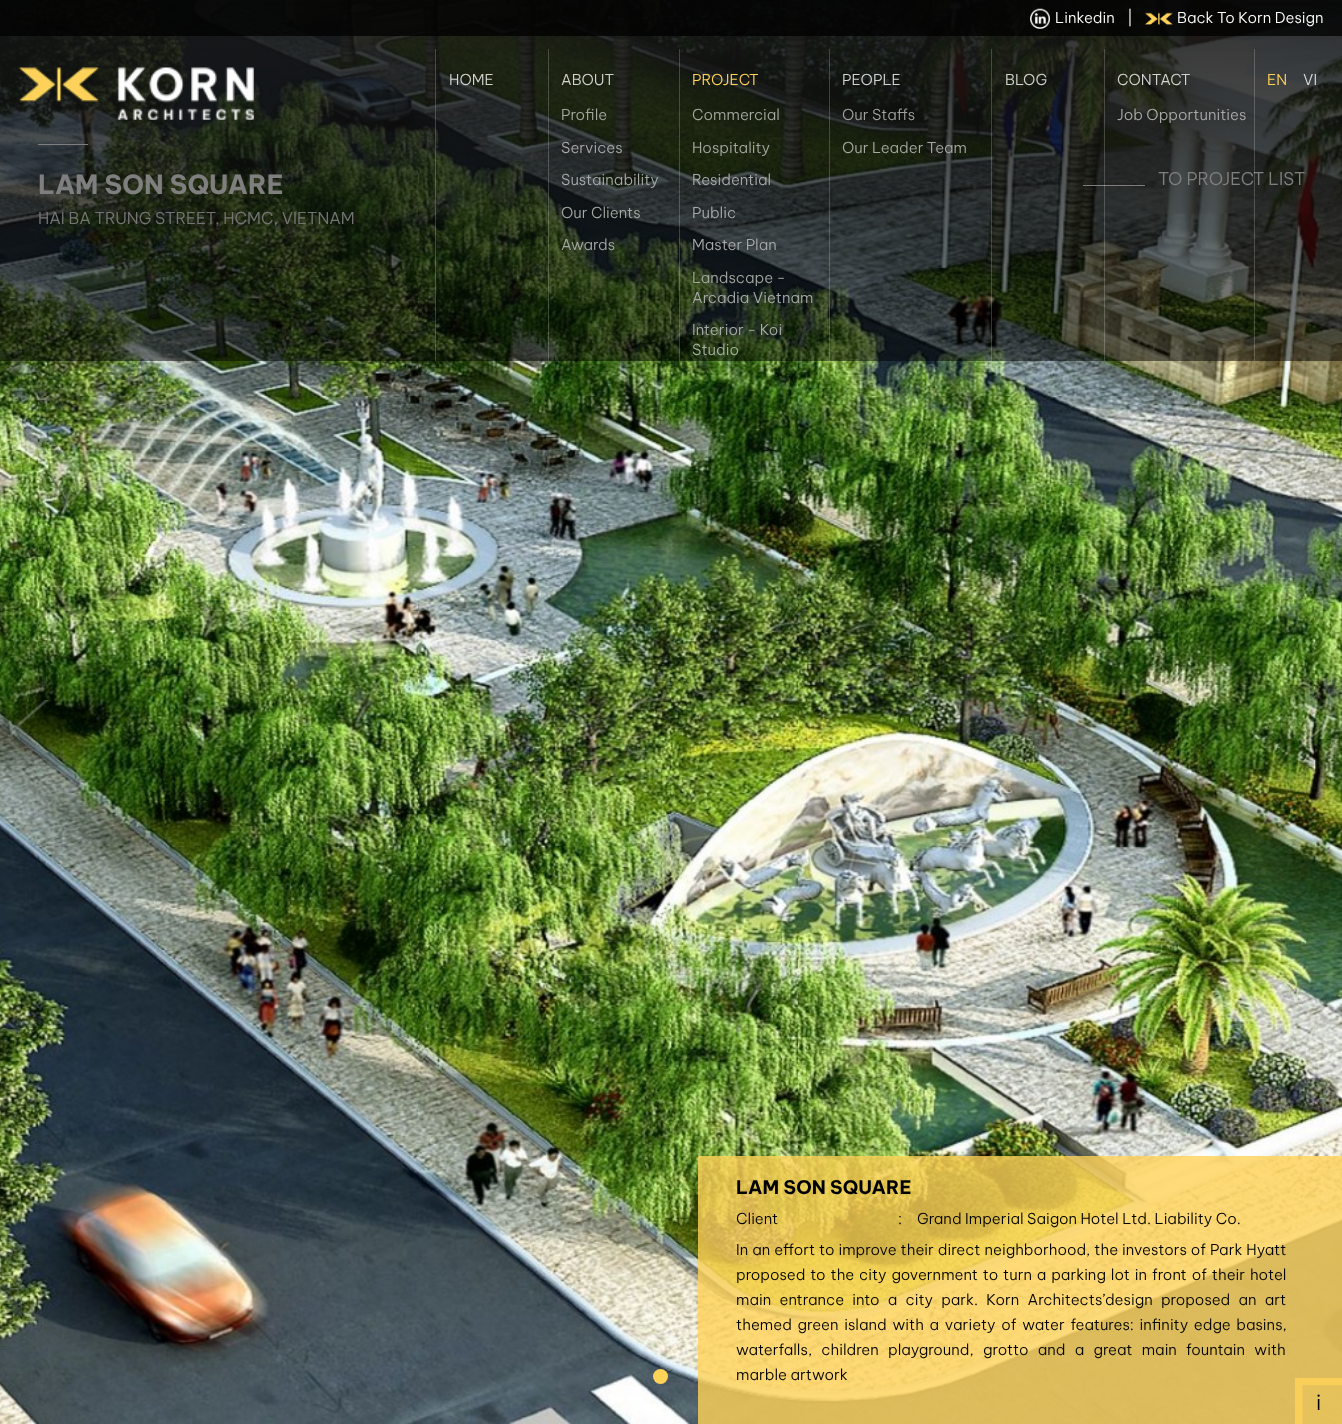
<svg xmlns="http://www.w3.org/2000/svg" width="1342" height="1424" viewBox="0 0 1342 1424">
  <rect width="100%" height="100%" fill="rgb(255,255,255)"/>
  <image x="0" y="0" width="1342" height="1424" href="pic4.png"/>
  <image x="0" y="0" width="1342" height="355" href="pic5.png"/>
  <rect x="38" y="144" width="50" height="1" fill="rgb(255,251,251)"/>
  <text x="38" y="194" font-family="Be Vietnam Pro" font-size="26.25" font-weight="bold" fill="rgb(255,255,255)">LAM SON SQUARE</text>
  <text x="38" y="224" font-family="Be Vietnam Pro" font-size="16.25" font-weight="300" fill="rgb(233,233,233)">HAI BA TRUNG STREET, HCMC, VIETNAM</text>
  <rect x="1083" y="185" width="62" height="1" fill="rgb(255,255,255)"/>
  <text x="1158" y="185" font-family="Be Vietnam Pro" font-size="17.5" font-weight="300" fill="rgb(255,255,255)">TO PROJECT LIST</text>
  <rect x="0" y="0" width="1342" height="361" fill="rgba(0,0,0,0.5)"/>
  <rect x="0" y="0" width="1342" height="36" fill="rgba(0,0,0,0.75)"/>
  <image x="1030" y="8" width="20" height="21" href="pic1.png"/>
  <g font-family="Be Vietnam Pro" font-size="15" font-weight="300" fill="rgb(255,255,255)">
    <text x="1055" y="23">Linkedin</text>
    <text x="1127" y="23">|</text>
  </g>
  <image x="1145" y="12" width="28" height="13" href="pic2.png"/>
  <text x="1177" y="23" font-family="Be Vietnam Pro" font-size="15" font-weight="300" fill="rgb(255,255,255)">Back To Korn Design</text>
  <image x="18" y="67" width="236" height="53" href="pic3.png"/>
  <rect x="435" y="49" width="1" height="312" fill="rgba(255,255,255,0.2)"/>
  <text x="449" y="85" font-family="Be Vietnam Pro" font-size="15" font-weight="300" fill="rgb(210,212,209)">HOME</text>
  <rect x="548" y="49" width="1" height="312" fill="rgba(255,255,255,0.2)"/>
  <text x="561" y="85" font-family="Be Vietnam Pro" font-size="15" font-weight="300" fill="rgb(210,212,209)">ABOUT</text>
  <text x="561" y="120" font-family="Be Vietnam Pro" font-size="15" font-weight="300" fill="rgb(164,168,160)">Profile</text>
  <g font-family="Be Vietnam Pro" font-size="15" font-weight="300" fill="rgb(168,170,170)">
    <text x="561" y="153">Services</text>
    <text x="561" y="185">Sustainability</text>
  </g>
  <g font-family="Be Vietnam Pro" font-size="15" font-weight="300" fill="rgb(164,168,160)">
    <text x="561" y="218">Our Clients</text>
    <text x="561" y="250">Awards</text>
  </g>
  <rect x="679" y="49" width="1" height="312" fill="rgba(255,255,255,0.2)"/>
  <text x="692" y="85" font-family="Be Vietnam Pro" font-size="15" font-weight="300" fill="rgb(255,210,88)">PROJECT</text>
  <g font-family="Be Vietnam Pro" font-size="15" font-weight="300" fill="rgb(164,168,160)">
    <text x="692" y="120">Commercial</text>
    <text x="692" y="153">Hospitality</text>
  </g>
  <g font-family="Be Vietnam Pro" font-size="15" font-weight="300" fill="rgb(168,170,170)">
    <text x="692" y="185">Residential</text>
    <text x="692" y="218">Public</text>
    <text x="692" y="250">Master Plan</text>
  </g>
  <text x="692" y="283" font-family="Be Vietnam Pro" font-size="15" font-weight="300" fill="rgb(164,168,160)">Landscape -</text>
  <g font-family="Be Vietnam Pro" font-size="15" font-weight="300" fill="rgb(168,170,170)">
    <text x="692" y="303">Arcadia Vietnam</text>
    <text x="692" y="335">Interior - Koi</text>
  </g>
  <text x="692" y="355" font-family="Be Vietnam Pro" font-size="15" font-weight="300" fill="rgb(168,176,161)">Studio</text>
  <rect x="829" y="49" width="1" height="312" fill="rgba(255,255,255,0.2)"/>
  <text x="842" y="85" font-family="Be Vietnam Pro" font-size="15" font-weight="300" fill="rgb(210,212,209)">PEOPLE</text>
  <text x="842" y="120" font-family="Be Vietnam Pro" font-size="15" font-weight="300" fill="rgb(160,161,160)">Our Staffs</text>
  <text x="842" y="153" font-family="Be Vietnam Pro" font-size="15" font-weight="300" fill="rgb(164,168,160)">Our Leader Team</text>
  <rect x="991" y="49" width="1" height="312" fill="rgba(255,255,255,0.2)"/>
  <text x="1005" y="85" font-family="Be Vietnam Pro" font-size="15" font-weight="300" fill="rgb(210,212,209)">BLOG</text>
  <rect x="1104" y="49" width="1" height="312" fill="rgba(255,255,255,0.2)"/>
  <text x="1117" y="85" font-family="Be Vietnam Pro" font-size="15" font-weight="300" fill="rgb(210,212,209)">CONTACT</text>
  <text x="1117" y="120" font-family="Be Vietnam Pro" font-size="15" font-weight="300" fill="rgb(168,170,170)">Job Opportunities</text>
  <rect x="1254" y="49" width="1" height="312" fill="rgba(255,255,255,0.2)"/>
  <text x="1267" y="85" font-family="Be Vietnam Pro" font-size="15" font-weight="300" fill="rgb(255,210,88)">EN</text>
  <text x="1303" y="85" font-family="Be Vietnam Pro" font-size="15" font-weight="300" fill="rgb(215,216,217)">VI</text>
  <rect x="0" y="685" width="63" height="81" fill="rgba(0,0,0,0.1)"/>
  <image x="15" y="700" width="34" height="53" href="pic6.png"/>
  <rect x="1280" y="685" width="62" height="81" fill="rgba(0,0,0,0.1)"/>
  <image x="1297" y="703" width="30" height="45" href="pic7.png"/>
  <circle cx="660.5" cy="1376.5" r="7.5" fill="rgb(255,210,88)"/>
  <image x="698" y="1156" width="644" height="268" href="pic8.png"/>
  <text x="736" y="1194" font-family="Be Vietnam Pro" font-size="18.75" font-weight="bold" fill="rgb(0,0,0)">LAM SON SQUARE</text>
  <g font-family="Be Vietnam Pro" font-size="15" font-weight="300" fill="rgb(0,0,0)">
    <text x="736" y="1224">Client</text>
    <text x="898" y="1224">:</text>
    <text x="917" y="1224">Grand Imperial Saigon Hotel Ltd. Liability Co.</text>
    <text>
      <tspan x="736" y="1255" word-spacing="0.5">In an effort to improve their direct neighborhood, the investors of Park Hyatt</tspan>
      <tspan x="736" y="1280" word-spacing="1.4">proposed to the city government to turn a parking lot in front of their hotel</tspan>
      <tspan x="736" y="1305" word-spacing="4.75">main entrance into a city park. Korn Architects’design proposed an art</tspan>
      <tspan x="736" y="1330" word-spacing="2.25">themed green island with a variety of water features: infinity edge basins,</tspan>
      <tspan x="736" y="1355" word-spacing="5.75">waterfalls, children playground, grotto and a great main fountain with</tspan>
      <tspan x="736" y="1380">marble artwork</tspan>
    </text>
  </g>
  <rect x="1295" y="1378" width="47" height="46" fill="rgba(255,210,88,0.85)"/>
  <text x="1316" y="1410" font-family="Be Vietnam Pro" font-size="21" font-weight="300" fill="rgb(0,0,0)">i</text>
</svg>
